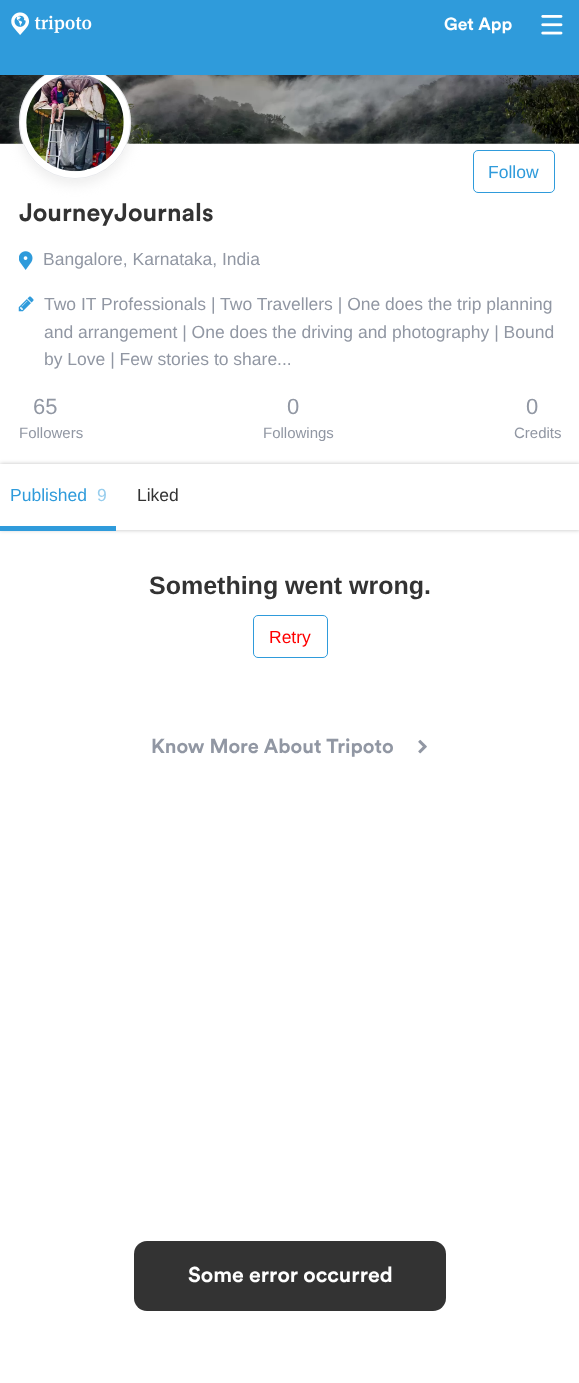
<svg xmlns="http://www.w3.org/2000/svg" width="579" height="1383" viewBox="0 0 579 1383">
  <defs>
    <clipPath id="clip1"><path d="M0 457H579V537H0ZM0 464H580V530H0Z" clip-rule="evenodd"/></clipPath>
  </defs>
  <rect width="100%" height="100%" fill="rgb(255,255,255)"/>
  <image x="0" y="75" width="579" height="69" href="pic3.png"/>
  <rect x="19" y="73" width="112" height="112" rx="56" fill="rgba(221,221,221,0.5)" filter="blur(6px)"/>
  <rect x="19" y="66" width="112" height="113" rx="56" fill="rgb(255,255,255)"/>
  <rect x="19.5" y="66.5" width="111" height="112" rx="55.5" fill="none" stroke="rgba(145,151,163,0.2)"/>
  <rect x="0" y="0" width="579" height="75" fill="rgb(47,155,219)"/>
  <image x="11" y="12" width="81" height="23" href="pic1.png"/>
  <text x="444" y="30" font-family="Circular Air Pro" font-size="17.5" font-weight="bold" fill="rgb(255,255,255)">Get App</text>
  <image x="541" y="15" width="22" height="20" href="pic2.png"/>
  <image x="26" y="75" width="98" height="97" href="pic4.png"/>
  <rect x="473.5" y="150.5" width="81" height="42" rx="4.5" fill="none" stroke="rgb(47,155,219)"/>
  <text x="488" y="178" font-family="Liberation Sans" font-size="17.5" fill="rgb(47,155,219)">Follow</text>
  <text x="19" y="221" font-family="Circular Air Pro" font-size="25" font-weight="bold" fill="rgb(51,51,51)">JourneyJournals</text>
  <image x="19" y="251" width="14" height="19" href="pic5.png"/>
  <text x="43" y="265" font-family="Liberation Sans" font-size="17.5" fill="rgb(145,151,163)">Bangalore, Karnataka, India</text>
  <image x="18" y="296" width="16" height="16" href="pic6.png"/>
  <g font-family="Liberation Sans" font-size="17.5" fill="rgb(145,151,163)">
    <text>
      <tspan x="44" y="310">Two IT Professionals | Two Travellers | One does the trip planning</tspan>
      <tspan x="44" y="338">and arrangement | One does the driving and photography | Bound</tspan>
      <tspan x="44" y="365">by Love | Few stories to share...</tspan>
    </text>
  </g>
  <text x="33" y="414" font-family="Liberation Sans" font-size="22" fill="rgb(145,151,163)">65</text>
  <text x="19" y="438" font-family="Liberation Sans" font-size="15" fill="rgb(145,151,163)">Followers</text>
  <text x="287" y="414" font-family="Liberation Sans" font-size="22" fill="rgb(145,151,163)">0</text>
  <text x="263" y="438" font-family="Liberation Sans" font-size="15" fill="rgb(145,151,163)">Followings</text>
  <text x="526" y="414" font-family="Liberation Sans" font-size="22" fill="rgb(145,151,163)">0</text>
  <text x="514" y="438" font-family="Liberation Sans" font-size="15" fill="rgb(145,151,163)">Credits</text>
  <g clip-path="url(#clip1)">
    <rect x="0" y="464" width="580" height="66" fill="rgba(0,0,0,0.25)" filter="blur(2px)"/>
  </g>
  <rect x="0" y="526" width="116" height="5" fill="rgb(47,155,219)"/>
  <text x="10" y="501" font-family="Liberation Sans" font-size="17.5" fill="rgb(47,155,219)">Published</text>
  <text x="97" y="501" font-family="Liberation Sans" font-size="17.5" fill="rgb(151,205,237)">9</text>
  <text x="137" y="501" font-family="Liberation Sans" font-size="17.5" fill="rgb(51,51,51)">Liked</text>
  <text x="149" y="594" font-family="Liberation Sans" font-size="25" font-weight="bold" fill="rgb(51,51,51)">Something went wrong.</text>
  <rect x="253.5" y="615.5" width="74" height="42" rx="4.5" fill="none" stroke="rgb(47,155,219)"/>
  <text x="269" y="643" font-family="Liberation Sans" font-size="17.5" fill="rgb(255,0,0)">Retry</text>
  <text x="151" y="753" font-family="Circular Air Pro" font-size="20" font-weight="bold" fill="rgb(145,151,163)">Know More About Tripoto</text>
  <image x="418" y="739" width="9" height="15" href="pic7.png"/>
  <rect x="134" y="1241" width="312" height="70" rx="13" fill="rgb(51,51,51)"/>
  <text x="188" y="1282" font-family="Circular Air Pro" font-size="21.25" font-weight="bold" fill="rgb(255,255,255)">Some error occurred</text>
</svg>
